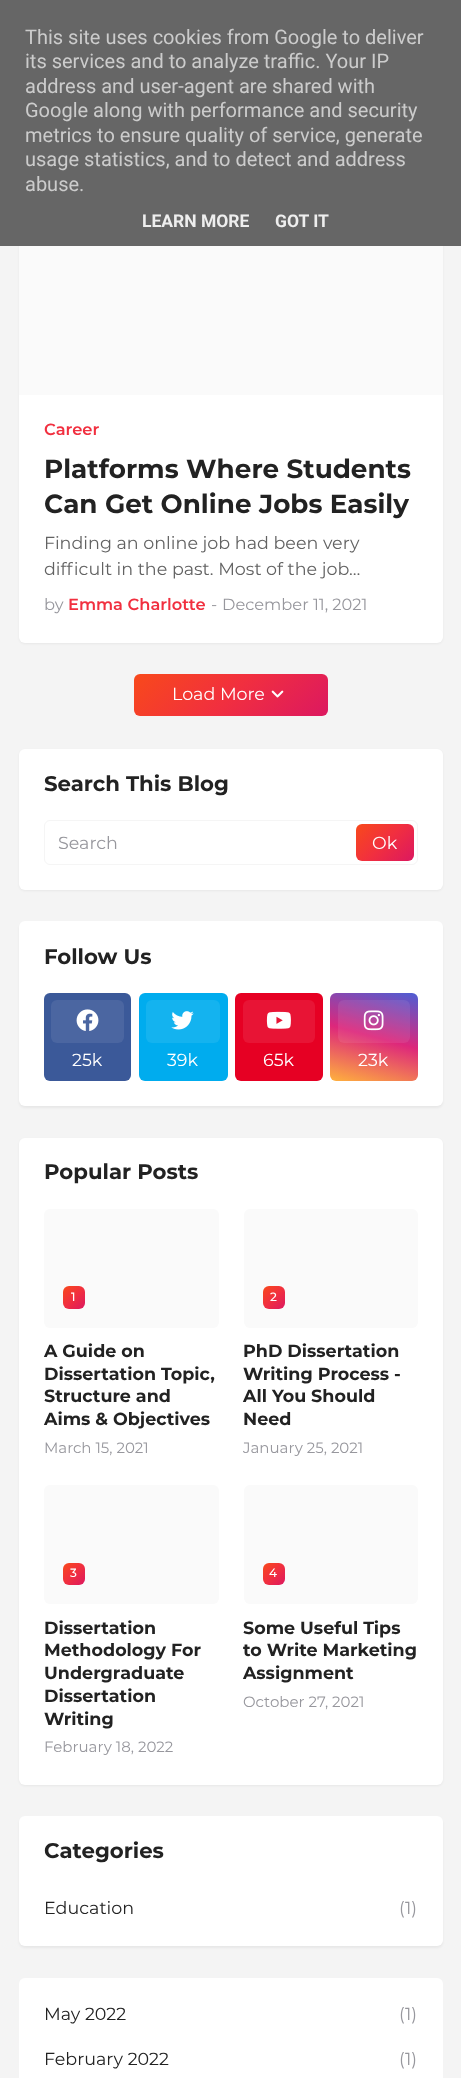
<svg xmlns="http://www.w3.org/2000/svg" width="461" height="2078" viewBox="0 0 461 2078">
  <defs>
    <linearGradient id="g1" gradientUnits="userSpaceOnUse" x1="172" y1="636" x2="290" y2="754"><stop offset="0" stop-color="rgb(248,73,27)"/><stop offset="0.5" stop-color="rgb(241,47,63)"/><stop offset="1" stop-color="rgb(220,24,96)"/></linearGradient>
    <linearGradient id="g2" gradientUnits="userSpaceOnUse" x1="361" y1="819" x2="409" y2="866"><stop offset="0" stop-color="rgb(248,73,27)"/><stop offset="0.5" stop-color="rgb(241,47,63)"/><stop offset="1" stop-color="rgb(220,24,96)"/></linearGradient>
    <linearGradient id="g3" gradientUnits="userSpaceOnUse" x1="360" y1="1089" x2="388" y2="985"><stop offset="0" stop-color="rgb(255,177,61)"/><stop offset="0.5" stop-color="rgb(221,39,123)"/><stop offset="1" stop-color="rgb(77,94,212)"/></linearGradient>
    <linearGradient id="g4" gradientUnits="userSpaceOnUse" x1="63" y1="1286" x2="85" y2="1309"><stop offset="0" stop-color="rgb(248,73,27)"/><stop offset="0.5" stop-color="rgb(241,47,63)"/><stop offset="1" stop-color="rgb(220,24,96)"/></linearGradient>
    <linearGradient id="g5" gradientUnits="userSpaceOnUse" x1="263" y1="1286" x2="285" y2="1309"><stop offset="0" stop-color="rgb(248,73,27)"/><stop offset="0.5" stop-color="rgb(241,47,63)"/><stop offset="1" stop-color="rgb(220,24,96)"/></linearGradient>
    <linearGradient id="g6" gradientUnits="userSpaceOnUse" x1="63" y1="1563" x2="85" y2="1585"><stop offset="0" stop-color="rgb(248,73,27)"/><stop offset="0.5" stop-color="rgb(241,47,63)"/><stop offset="1" stop-color="rgb(220,24,96)"/></linearGradient>
    <linearGradient id="g7" gradientUnits="userSpaceOnUse" x1="263" y1="1563" x2="285" y2="1585"><stop offset="0" stop-color="rgb(248,73,27)"/><stop offset="0.5" stop-color="rgb(241,47,63)"/><stop offset="1" stop-color="rgb(220,24,96)"/></linearGradient>
  </defs>
  <rect width="100%" height="100%" fill="rgb(244,244,244)"/>
  <rect x="19" y="184" width="424" height="460" rx="6" fill="rgba(0,0,0,0.05)" filter="blur(1px)"/>
  <rect x="19" y="183" width="424" height="460" rx="6" fill="rgb(255,255,255)"/>
  <rect x="0" y="0" width="461" height="246" fill="rgb(102,102,102)"/>
  <g font-family="Roboto" font-size="20" fill="rgb(204,204,204)">
    <text>
      <tspan x="25" y="44">This site uses cookies from Google to deliver</tspan>
      <tspan x="25" y="68">its services and to analyze traffic. Your IP</tspan>
      <tspan x="25" y="93">address and user-agent are shared with</tspan>
      <tspan x="25" y="117">Google along with performance and security</tspan>
      <tspan x="25" y="142">metrics to ensure quality of service, generate</tspan>
      <tspan x="25" y="166">usage statistics, and to detect and address</tspan>
      <tspan x="25" y="191">abuse.</tspan>
    </text>
  </g>
  <g font-family="Roboto" font-size="17.5" font-weight="bold" fill="rgb(238,238,238)">
    <text x="142" y="227">LEARN MORE</text>
    <text x="275" y="227">GOT IT</text>
  </g>
  <rect x="19" y="246" width="424" height="149" fill="rgba(155,155,155,0.05)"/>
  <text x="44" y="435" font-family="Montserrat" font-size="16.25" font-weight="600" fill="rgb(241,47,63)">Career</text>
  <g font-family="Montserrat" font-size="26.25" font-weight="bold" fill="rgb(34,34,34)">
    <text>
      <tspan x="44" y="478">Platforms Where Students</tspan>
      <tspan x="44" y="513">Can Get Online Jobs Easily</tspan>
    </text>
  </g>
  <g font-family="Montserrat" font-size="17.5" fill="rgb(98,98,98)">
    <text>
      <tspan x="44" y="549">Finding an online job had been very</tspan>
      <tspan x="44" y="575">difficult in the past. Most of the job…</tspan>
    </text>
  </g>
  <text x="44" y="610" font-family="Montserrat" font-size="16.25" fill="rgb(151,151,157)">by</text>
  <text x="68" y="610" font-family="Montserrat" font-size="16.25" font-weight="600" fill="rgb(241,47,63)">Emma Charlotte</text>
  <g font-family="Montserrat" font-size="16.25" fill="rgb(151,151,157)">
    <text x="211" y="610">-</text>
    <text x="222" y="610">December 11, 2021</text>
  </g>
  <rect x="134" y="674" width="194" height="42" rx="6" fill="url(#g1)"/>
  <text x="172" y="700" font-family="Montserrat" font-size="17.5" fill="rgb(255,255,255)">Load More</text>
  <image x="271" y="690" width="13" height="8" href="pic1.png"/>
  <rect x="19" y="750" width="424" height="141" rx="6" fill="rgba(0,0,0,0.05)" filter="blur(1px)"/>
  <rect x="19" y="749" width="424" height="141" rx="6" fill="rgb(255,255,255)"/>
  <text x="44" y="791" font-family="Montserrat" font-size="21.25" font-weight="bold" fill="rgb(34,34,34)">Search This Blog</text>
  <rect x="44.5" y="820.5" width="373" height="44" rx="5.5" fill="none" stroke="rgb(245,245,245)"/>
  <text x="58" y="849" font-family="Montserrat" font-size="17.5" fill="rgb(151,151,157)">Search</text>
  <rect x="356" y="824" width="58" height="37" rx="6" fill="url(#g2)"/>
  <text x="372" y="849" font-family="Montserrat" font-size="17.5" fill="rgb(255,255,255)">Ok</text>
  <rect x="19" y="923" width="424" height="185" rx="6" fill="rgba(0,0,0,0.05)" filter="blur(1px)"/>
  <rect x="19" y="921" width="424" height="185" rx="6" fill="rgb(255,255,255)"/>
  <text x="44" y="964" font-family="Montserrat" font-size="21.25" font-weight="bold" fill="rgb(34,34,34)">Follow Us</text>
  <rect x="44" y="993" width="87" height="88" rx="6" fill="rgb(59,89,153)"/>
  <rect x="51" y="1000" width="73" height="43" rx="6" fill="rgb(75,102,161)"/>
  <image x="76" y="1009" width="23" height="22" href="pic2.png"/>
  <text x="72" y="1066" font-family="Montserrat" font-size="17.5" fill="rgb(255,255,255)">25k</text>
  <rect x="139" y="993" width="89" height="88" rx="6" fill="rgb(0,172,238)"/>
  <rect x="146" y="1000" width="74" height="43" rx="6" fill="rgb(20,179,239)"/>
  <image x="171" y="1011" width="23" height="19" href="pic3.png"/>
  <text x="167" y="1066" font-family="Montserrat" font-size="17.5" fill="rgb(255,255,255)">39k</text>
  <rect x="235" y="993" width="88" height="88" rx="6" fill="rgb(230,0,35)"/>
  <rect x="243" y="1000" width="72" height="43" rx="6" fill="rgb(232,20,53)"/>
  <image x="266" y="1011" width="25" height="18" href="pic4.png"/>
  <text x="263" y="1066" font-family="Montserrat" font-size="17.5" fill="rgb(255,255,255)">65k</text>
  <rect x="330" y="993" width="88" height="88" rx="6" fill="url(#g3)"/>
  <rect x="338" y="1000" width="72" height="43" rx="6" fill="rgba(255,255,255,0.08)"/>
  <image x="363" y="1010" width="21" height="21" href="pic5.png"/>
  <text x="358" y="1066" font-family="Montserrat" font-size="17.5" fill="rgb(255,255,255)">23k</text>
  <rect x="19" y="1139" width="424" height="647" rx="6" fill="rgba(0,0,0,0.05)" filter="blur(1px)"/>
  <rect x="19" y="1138" width="424" height="647" rx="6" fill="rgb(255,255,255)"/>
  <text x="44" y="1179" font-family="Montserrat" font-size="21.25" font-weight="bold" fill="rgb(34,34,34)">Popular Posts</text>
  <rect x="44" y="1209" width="175" height="119" rx="6" fill="rgb(250,250,250)"/>
  <rect x="63" y="1286" width="22" height="23" rx="6" fill="url(#g4)"/>
  <text x="71" y="1301" font-family="Montserrat" font-size="12" font-weight="500" fill="rgb(255,255,255)">1</text>
  <g font-family="Montserrat" font-size="17.5" font-weight="bold" fill="rgb(34,34,34)">
    <text>
      <tspan x="44" y="1357">A Guide on</tspan>
      <tspan x="44" y="1380">Dissertation Topic,</tspan>
      <tspan x="44" y="1402">Structure and</tspan>
      <tspan x="44" y="1425">Aims &amp; Objectives</tspan>
    </text>
  </g>
  <text x="44" y="1453" font-family="Montserrat" font-size="15" fill="rgb(151,151,157)">March 15, 2021</text>
  <rect x="244" y="1209" width="174" height="119" rx="6" fill="rgb(250,250,250)"/>
  <rect x="263" y="1286" width="22" height="23" rx="6" fill="url(#g5)"/>
  <text x="270" y="1301" font-family="Montserrat" font-size="12" font-weight="500" fill="rgb(255,255,255)">2</text>
  <g font-family="Montserrat" font-size="17.5" font-weight="bold" fill="rgb(34,34,34)">
    <text>
      <tspan x="243" y="1357">PhD Dissertation</tspan>
      <tspan x="243" y="1380">Writing Process -</tspan>
      <tspan x="243" y="1402">All You Should</tspan>
      <tspan x="243" y="1425">Need</tspan>
    </text>
  </g>
  <text x="243" y="1453" font-family="Montserrat" font-size="15" fill="rgb(151,151,157)">January 25, 2021</text>
  <rect x="44" y="1485" width="175" height="119" rx="6" fill="rgb(250,250,250)"/>
  <rect x="63" y="1563" width="22" height="22" rx="6" fill="url(#g6)"/>
  <text x="70" y="1577" font-family="Montserrat" font-size="12" font-weight="500" fill="rgb(255,255,255)">3</text>
  <g font-family="Montserrat" font-size="17.5" font-weight="bold" fill="rgb(34,34,34)">
    <text>
      <tspan x="44" y="1634">Dissertation</tspan>
      <tspan x="44" y="1656">Methodology For</tspan>
      <tspan x="44" y="1679">Undergraduate</tspan>
      <tspan x="44" y="1702">Dissertation</tspan>
      <tspan x="44" y="1725">Writing</tspan>
    </text>
  </g>
  <text x="44" y="1752" font-family="Montserrat" font-size="15" fill="rgb(151,151,157)">February 18, 2022</text>
  <rect x="244" y="1485" width="174" height="119" rx="6" fill="rgb(250,250,250)"/>
  <rect x="263" y="1563" width="22" height="22" rx="6" fill="url(#g7)"/>
  <text x="269" y="1577" font-family="Montserrat" font-size="12" font-weight="500" fill="rgb(255,255,255)">4</text>
  <g font-family="Montserrat" font-size="17.5" font-weight="bold" fill="rgb(34,34,34)">
    <text>
      <tspan x="243" y="1634">Some Useful Tips</tspan>
      <tspan x="243" y="1656">to Write Marketing</tspan>
      <tspan x="243" y="1679">Assignment</tspan>
    </text>
  </g>
  <text x="243" y="1707" font-family="Montserrat" font-size="15" fill="rgb(151,151,157)">October 27, 2021</text>
  <rect x="19" y="1818" width="424" height="130" rx="6" fill="rgba(0,0,0,0.05)" filter="blur(1px)"/>
  <rect x="19" y="1816" width="424" height="130" rx="6" fill="rgb(255,255,255)"/>
  <text x="44" y="1858" font-family="Montserrat" font-size="21.25" font-weight="bold" fill="rgb(34,34,34)">Categories</text>
  <text x="44" y="1914" font-family="Montserrat" font-size="17.5" fill="rgb(34,34,34)">Education</text>
  <text x="399" y="1914" font-family="Montserrat" font-size="17.5" fill="rgb(151,151,157)">(1)</text>
  <rect x="19" y="1978" width="424" height="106" rx="6" fill="rgb(255,255,255)"/>
  <text x="44" y="2020" font-family="Montserrat" font-size="17.5" fill="rgb(34,34,34)">May 2022</text>
  <text x="399" y="2020" font-family="Montserrat" font-size="17.5" fill="rgb(151,151,157)">(1)</text>
  <text x="44" y="2065" font-family="Montserrat" font-size="17.5" fill="rgb(34,34,34)">February 2022</text>
  <text x="399" y="2065" font-family="Montserrat" font-size="17.5" fill="rgb(151,151,157)">(1)</text>
</svg>
